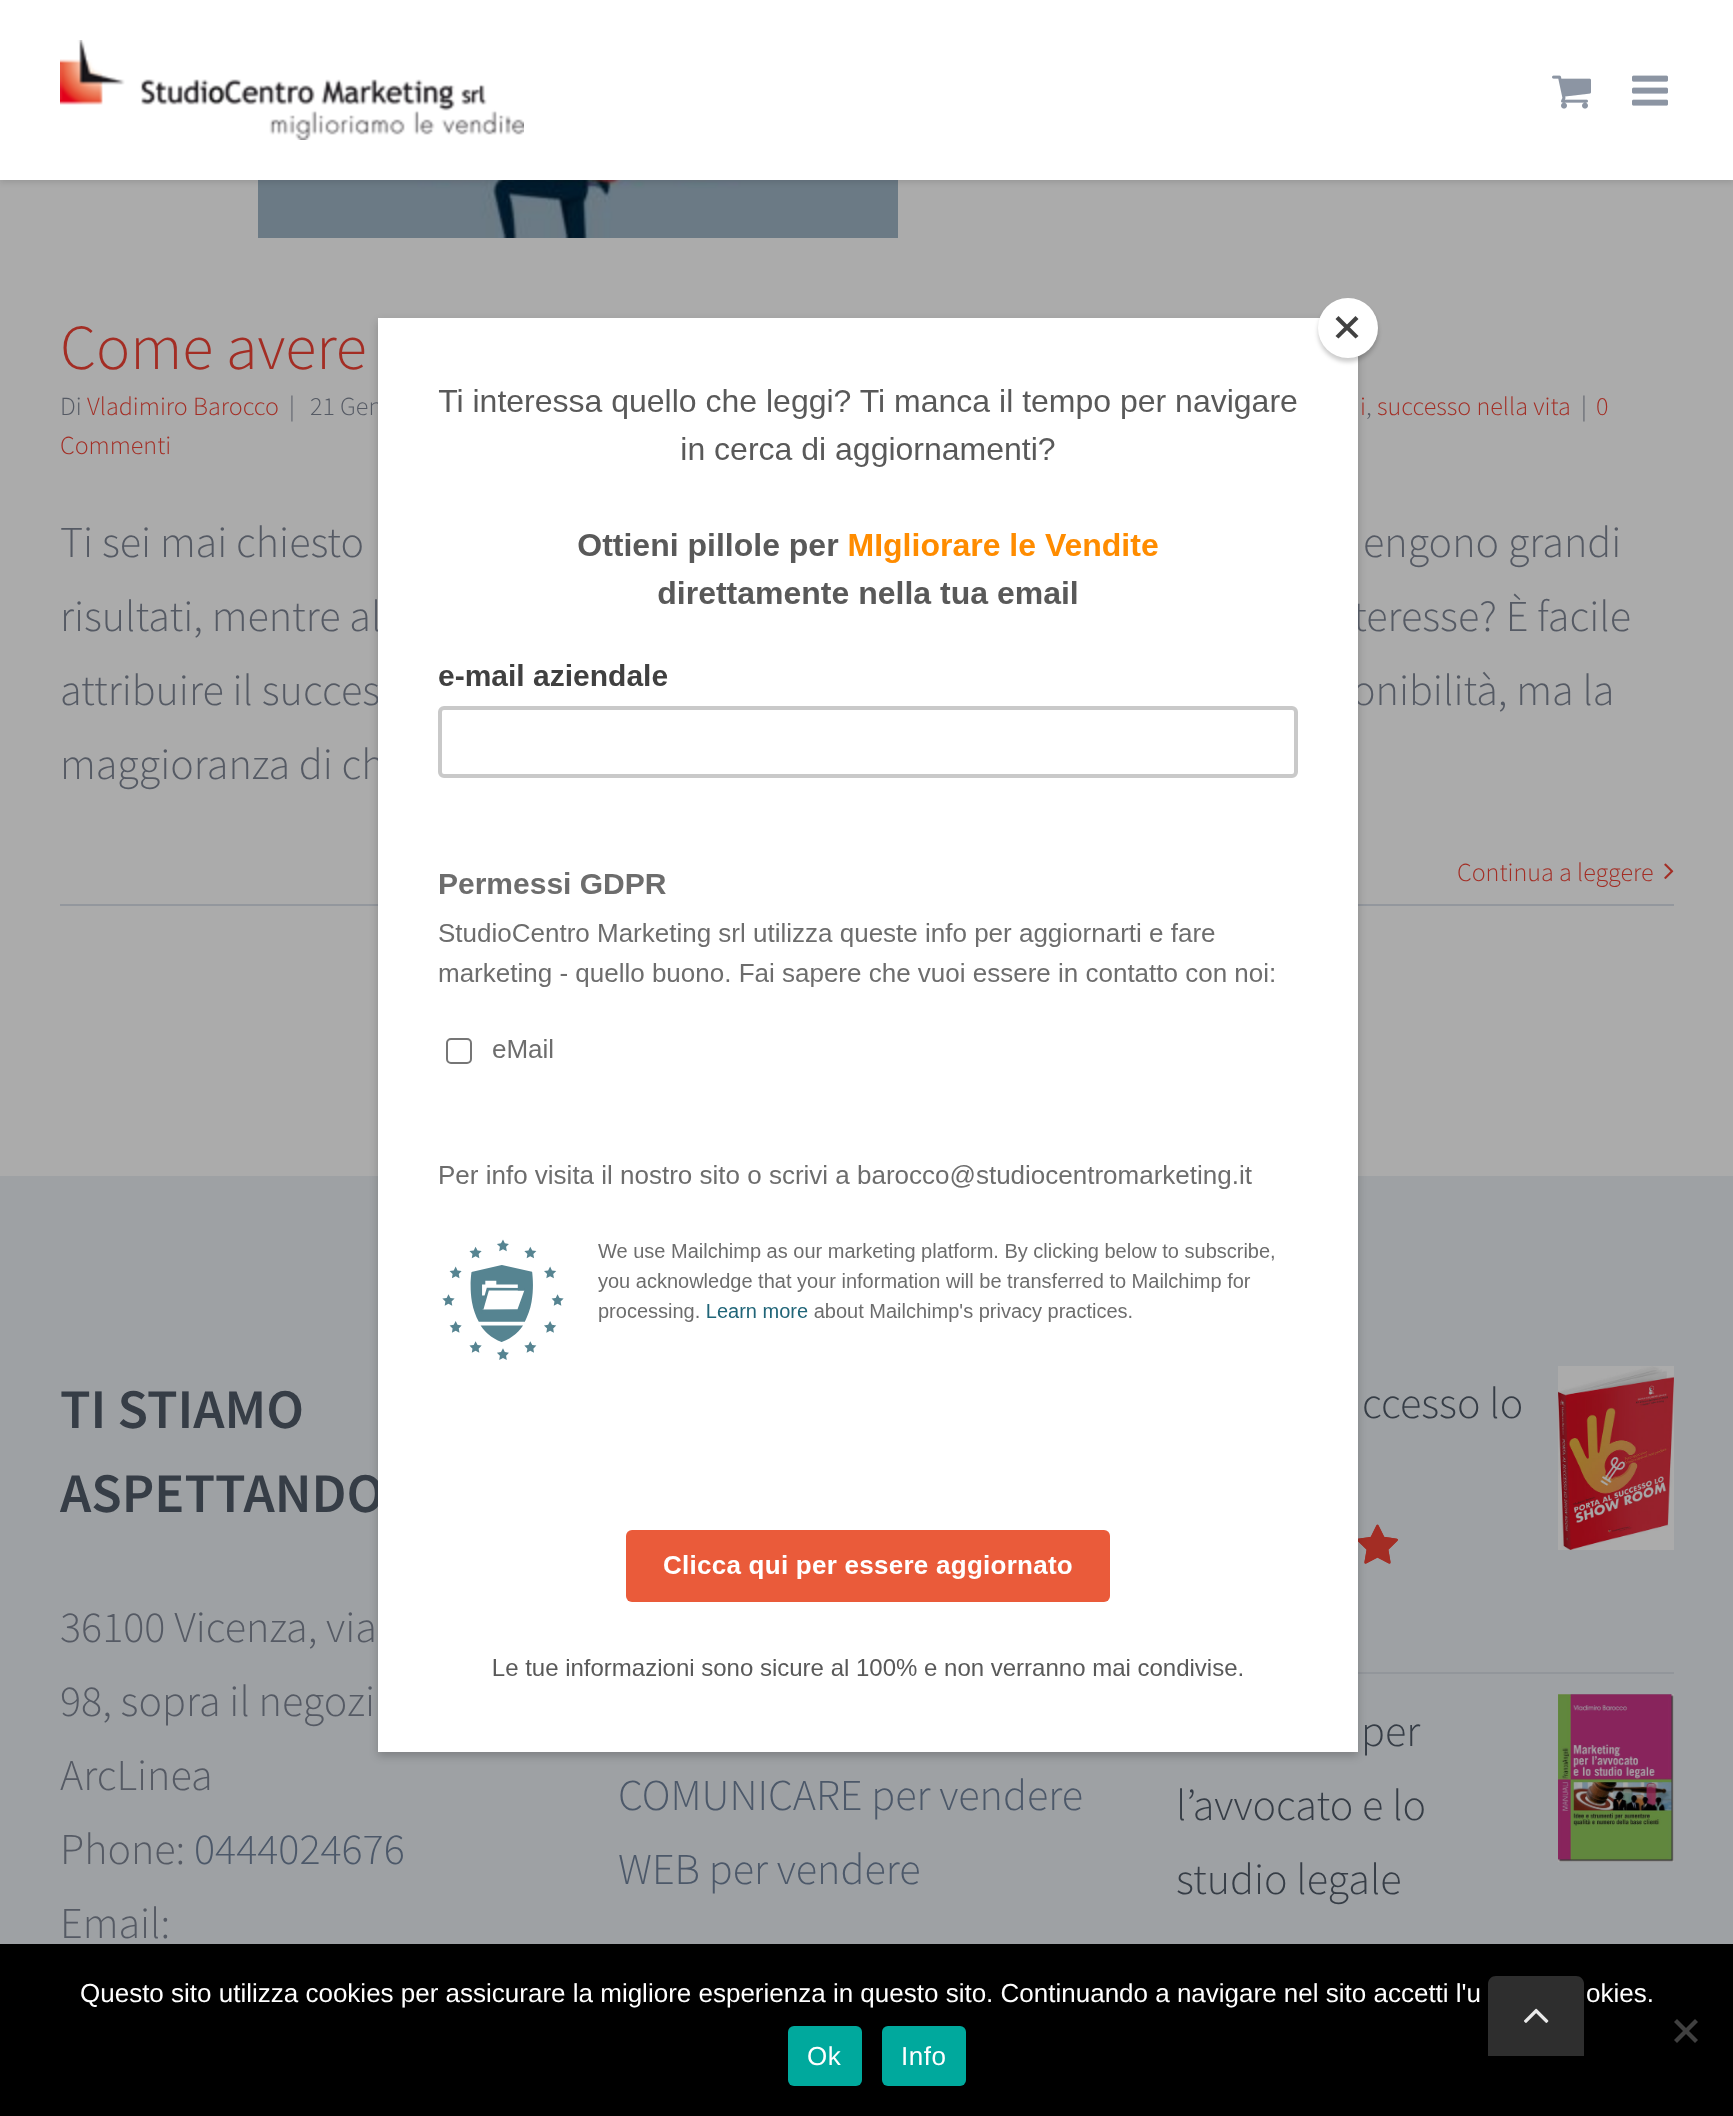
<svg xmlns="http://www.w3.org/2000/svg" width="1733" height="2116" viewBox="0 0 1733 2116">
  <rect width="100%" height="100%" fill="rgb(171,171,171)"/>
  <rect x="60" y="904" width="1614" height="2" fill="rgb(147,151,157)"/>
  <rect x="0" y="1176" width="1733" height="768" fill="rgb(158,161,164)"/>
  <rect x="1358" y="1672" width="316" height="2" fill="rgb(146,150,155)"/>
  <image x="1358" y="1524" width="40" height="40" href="pic8.png"/>
  <image x="1358" y="1524" width="40" height="40" href="pic9.png"/>
  <rect x="378" y="322" width="980" height="1434" fill="rgba(0,0,0,0.2)" filter="blur(4px)"/>
  <text x="310" y="415" font-family="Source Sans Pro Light" font-size="26" font-weight="300" fill="rgb(85,90,100)">21 Gen</text>
  <g font-family="Source Sans Pro Light" font-size="44" font-weight="300" fill="rgb(85,90,100)">
    <text x="60" y="631">risultati, mentre al</text>
    <text x="1353" y="631">teresse? È facile</text>
    <text x="60" y="705">attribuire il succes</text>
    <text x="1352" y="705">onibilità, ma la</text>
    <text x="60" y="779">maggioranza di ch</text>
  </g>
  <text x="60" y="1512" font-family="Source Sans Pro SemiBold" font-size="56" font-weight="600" fill="rgb(54,61,70)">ASPETTANDO</text>
  <image x="378" y="318" width="980" height="1434" href="pic1.png"/>
  <rect x="1318" y="302" width="60" height="60" rx="30" fill="rgba(0,0,0,0.2)" filter="blur(2px)"/>
  <circle cx="1348" cy="328" r="30" fill="rgb(255,255,255)"/>
  <path d="M1355.5 316L1358.5 319L1338.5 338.5L1335.5 336Z" fill="rgb(65,65,65)"/>
  <path d="M1335.5 319L1338.5 316L1358.5 336L1355.5 338.5Z" fill="rgb(65,65,65)"/>
  <image x="258" y="180" width="640" height="58" href="pic5.png"/>
  <rect x="0" y="2" width="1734" height="180" fill="rgba(0,0,0,0.12)" filter="blur(3px)"/>
  <rect x="0" y="0" width="1733" height="180" fill="rgb(255,255,255)"/>
  <image x="60" y="40" width="464" height="100" href="pic2.png"/>
  <image x="1552" y="75" width="39" height="34" href="pic3.png"/>
  <image x="1632" y="75" width="36" height="31" href="pic4.png"/>
  <text x="60" y="369" font-family="Source Sans Pro Light" font-size="64" font-weight="300" fill="rgb(163,45,36)">Come avere</text>
  <text x="60" y="415" font-family="Source Sans Pro Light" font-size="26" font-weight="300" fill="rgb(85,90,100)">Di</text>
  <text x="87" y="415" font-family="Source Sans Pro Light" font-size="26" font-weight="300" fill="rgb(163,45,36)">Vladimiro Barocco</text>
  <text x="289" y="415" font-family="Source Sans Pro Light" font-size="26" font-weight="300" fill="rgb(85,90,100)">|</text>
  <text x="1360" y="415" font-family="Source Sans Pro Light" font-size="26" font-weight="300" fill="rgb(163,45,36)">i</text>
  <text x="1366" y="415" font-family="Source Sans Pro Light" font-size="26" font-weight="300" fill="rgb(85,90,100)">,</text>
  <text x="1377" y="415" font-family="Source Sans Pro Light" font-size="26" font-weight="300" fill="rgb(163,45,36)">successo nella vita</text>
  <text x="1581" y="415" font-family="Source Sans Pro Light" font-size="26" font-weight="300" fill="rgb(85,90,100)">|</text>
  <g font-family="Source Sans Pro Light" font-size="26" font-weight="300" fill="rgb(163,45,36)">
    <text x="1596" y="415">0</text>
    <text x="60" y="454">Commenti</text>
  </g>
  <g font-family="Source Sans Pro Light" font-size="44" font-weight="300" fill="rgb(85,90,100)">
    <text x="60" y="557">Ti sei mai chiesto</text>
    <text x="1363" y="557">engono grandi</text>
  </g>
  <text x="1457" y="881" font-family="Source Sans Pro Light" font-size="26" font-weight="300" fill="rgb(163,45,36)">Continua a leggere</text>
  <image x="1664" y="863" width="10" height="16" href="pic6.png"/>
  <text x="60" y="1428" font-family="Source Sans Pro SemiBold" font-size="56" font-weight="600" fill="rgb(54,61,70)">TI STIAMO</text>
  <g font-family="Source Sans Pro Light" font-size="44" font-weight="300" fill="rgb(85,90,100)">
    <text>
      <tspan x="60" y="1642">36100 Vicenza, via</tspan>
      <tspan x="60" y="1716">98, sopra il negozi</tspan>
      <tspan x="60" y="1790">ArcLinea</tspan>
      <tspan x="60" y="1864">Phone:</tspan>
    </text>
  </g>
  <text x="194" y="1864" font-family="Source Sans Pro Light" font-size="44" font-weight="300" fill="rgb(76,88,105)">0444024676</text>
  <text x="60" y="1938" font-family="Source Sans Pro Light" font-size="44" font-weight="300" fill="rgb(85,90,100)">Email:</text>
  <g font-family="Source Sans Pro Light" font-size="44" font-weight="300" fill="rgb(76,88,105)">
    <text>
      <tspan x="618" y="1810">COMUNICARE per vendere</tspan>
      <tspan x="618" y="1884">WEB per vendere</tspan>
    </text>
  </g>
  <text x="1362" y="1418" font-family="Source Sans Pro Light" font-size="44" font-weight="300" fill="rgb(54,61,70)">ccesso lo</text>
  <image x="1558" y="1366" width="116" height="184" href="pic7.png"/>
  <text x="1361" y="1746" font-family="Source Sans Pro Light" font-size="44" font-weight="300" fill="rgb(54,61,70)">per</text>
  <image x="1558" y="1694" width="116" height="168" href="pic10.png"/>
  <g font-family="Source Sans Pro Light" font-size="44" font-weight="300" fill="rgb(54,61,70)">
    <text>
      <tspan x="1176" y="1820">l’avvocato e lo</tspan>
      <tspan x="1176" y="1894">studio legale</tspan>
    </text>
  </g>
  <rect x="0" y="1944" width="1733" height="172" fill="rgb(0,0,0)"/>
  <path d="M1496 1976H1576C1580.5 1976 1584 1979.5 1584 1984V2056H1488V1984C1488 1979.5 1491.5 1976 1496 1976Z" fill="rgba(51,51,51,0.9)"/>
  <image x="1524" y="2008" width="25" height="15" href="pic11.png"/>
  <g font-family="Liberation Sans" font-size="26" fill="rgb(255,255,255)">
    <text x="80" y="2002">Questo sito utilizza cookies per assicurare la migliore esperienza in questo sito. Continuando a navigare nel sito accetti l'u</text>
    <text x="1586" y="2002">okies.</text>
  </g>
  <path d="M1695 2019L1698 2022L1677 2043L1674 2040Z" fill="rgb(64,64,64)"/>
  <path d="M1674 2022L1677 2019L1698 2040L1695 2043Z" fill="rgb(64,64,64)"/>
  <rect x="788" y="2026" width="74" height="60" rx="6" fill="rgb(0,169,157)"/>
  <text x="807" y="2065" font-family="Liberation Sans" font-size="26" letter-spacing="0.5" fill="rgb(255,255,255)">Ok</text>
  <rect x="882" y="2026" width="84" height="60" rx="6" fill="rgb(0,169,157)"/>
  <text x="901" y="2065" font-family="Liberation Sans" font-size="26" letter-spacing="0.5" fill="rgb(255,255,255)">Info</text>
</svg>
